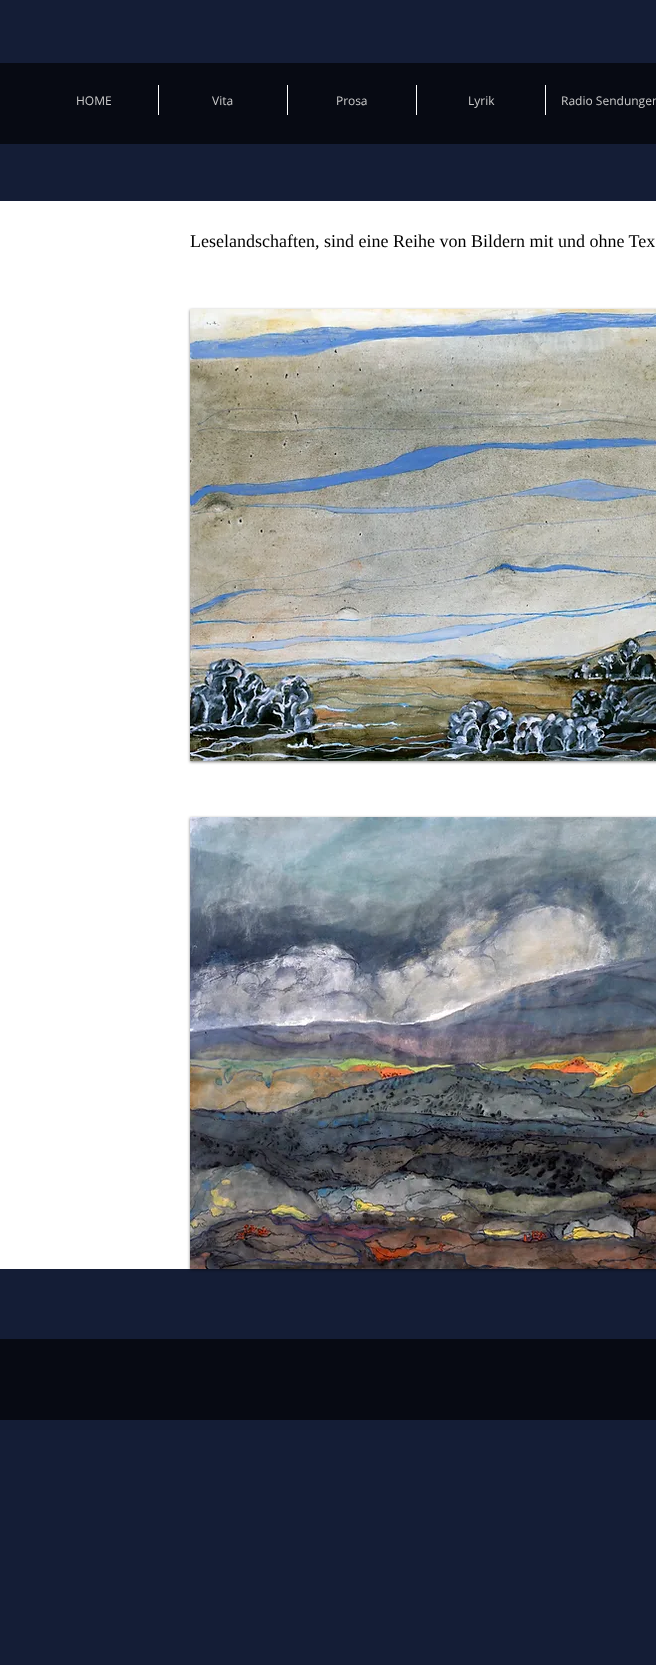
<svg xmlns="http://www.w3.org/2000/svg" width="656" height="1665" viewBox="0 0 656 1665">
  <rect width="100%" height="100%" fill="rgb(20,29,54)"/>
  <rect x="0" y="63" width="656" height="81" fill="rgb(7,10,19)"/>
  <text x="76" y="105" font-family="Open Sans" font-size="12" fill="rgb(202,202,202)">HOME</text>
  <rect x="158" y="85" width="1" height="30" fill="rgb(255,255,255)"/>
  <text x="212" y="105" font-family="Open Sans" font-size="12" fill="rgb(202,202,202)">Vita</text>
  <rect x="287" y="85" width="1" height="30" fill="rgb(255,255,255)"/>
  <text x="336" y="105" font-family="Open Sans" font-size="12" fill="rgb(202,202,202)">Prosa</text>
  <rect x="416" y="85" width="1" height="30" fill="rgb(255,255,255)"/>
  <text x="468" y="105" font-family="Open Sans" font-size="12" fill="rgb(202,202,202)">Lyrik</text>
  <rect x="545" y="85" width="1" height="30" fill="rgb(255,255,255)"/>
  <text x="561" y="105" font-family="Open Sans" font-size="12" fill="rgb(202,202,202)">Radio Sendungen</text>
  <rect x="0" y="201" width="656" height="1068" fill="rgb(255,255,255)"/>
  <text x="190" y="247" font-family="Liberation Serif" font-size="18" fill="rgb(0,0,0)">Leselandschaften, sind eine Reihe von Bildern mit und ohne Tex</text>
  <rect x="190" y="310" width="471" height="452" fill="rgba(0,0,0,0.5)" filter="blur(1.5px)"/>
  <image x="190" y="309" width="466" height="452" href="pic1.png"/>
  <rect x="190" y="818" width="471" height="452" fill="rgba(0,0,0,0.5)" filter="blur(1.5px)"/>
  <image x="190" y="817" width="466" height="452" href="pic2.png"/>
  <rect x="0" y="1339" width="656" height="81" fill="rgb(7,10,19)"/>
</svg>
